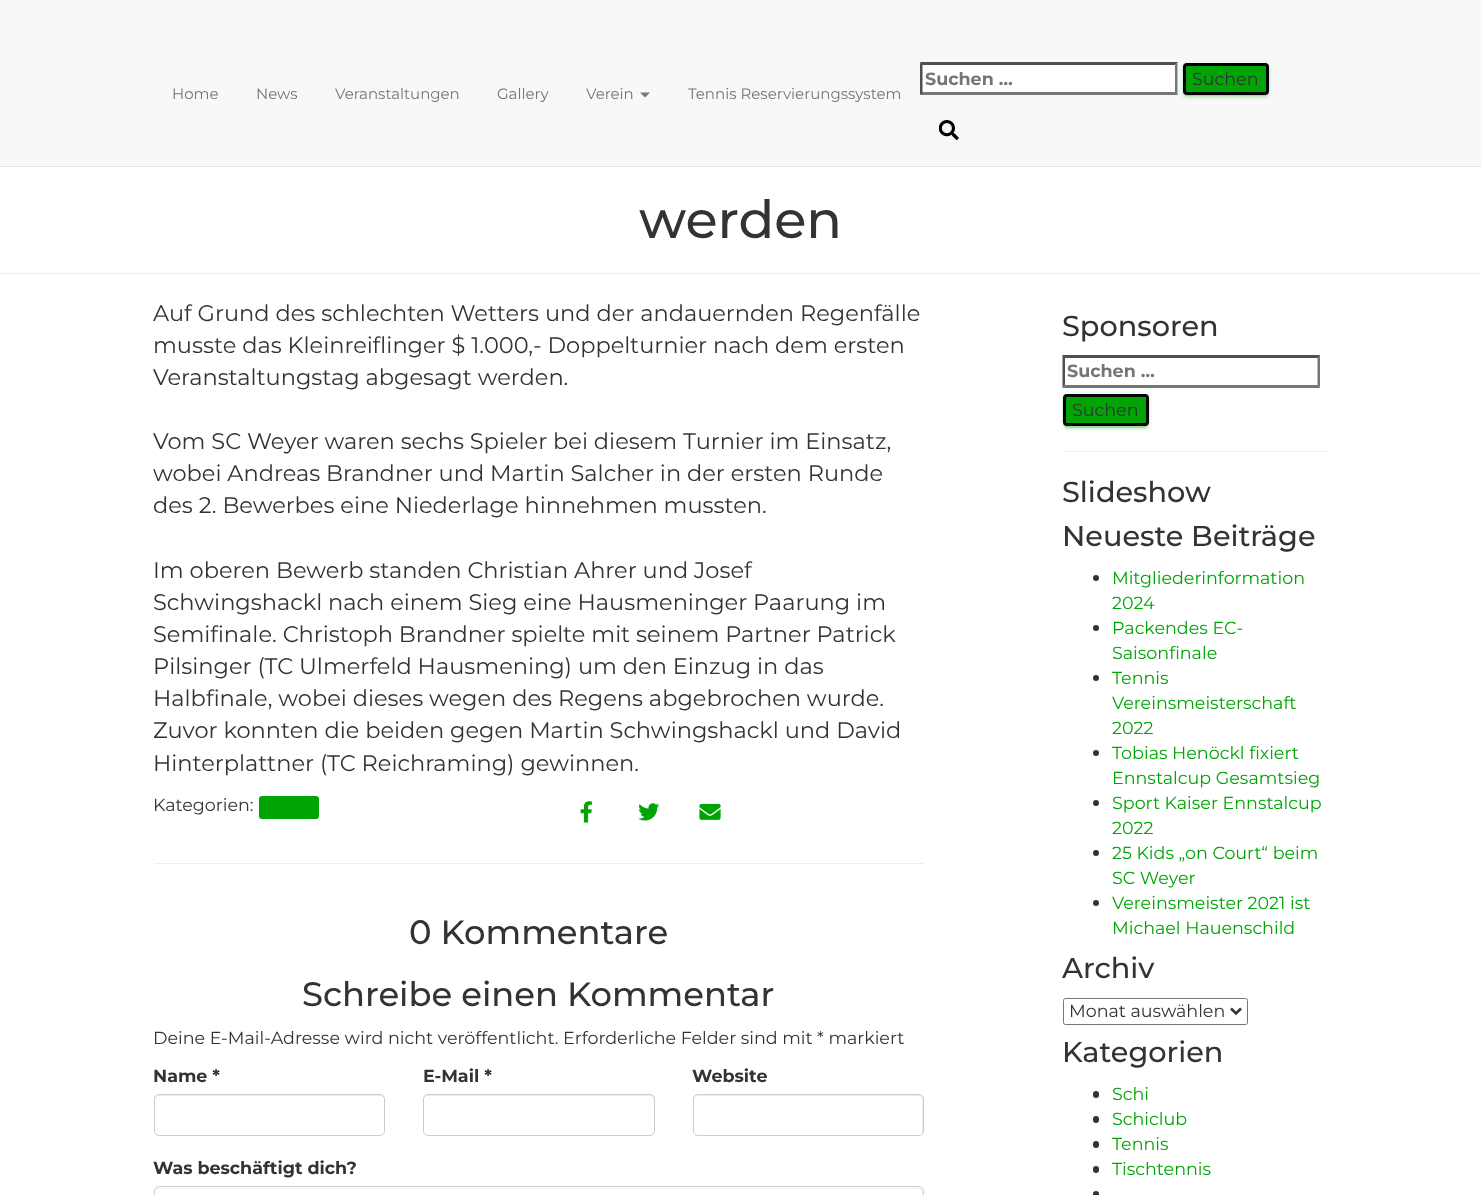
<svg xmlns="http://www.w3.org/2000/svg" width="1481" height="1195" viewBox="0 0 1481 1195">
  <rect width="100%" height="100%" fill="rgb(255,255,255)"/>
  <rect x="0" y="0" width="1481" height="166" fill="rgb(248,248,248)"/>
  <rect x="0" y="166" width="1481" height="1" fill="rgb(231,231,231)"/>
  <rect x="920" y="63" width="258" height="32" fill="rgb(255,255,255)"/>
  <path d="M920 62H1178L1175 65H922Z" fill="rgb(79,79,79)"/>
  <path d="M1177.5 62.5V95L1175 92.5V65Z" fill="rgb(118,118,118)"/>
  <path d="M1178 95H920L922 92H1175Z" fill="rgb(118,118,118)"/>
  <path d="M920 95V62.5L922.5 65V92.5Z" fill="rgb(79,79,79)"/>
  <text x="925" y="85" font-family="Montserrat" font-size="17.5" font-weight="bold" fill="rgb(117,117,117)">Suchen …</text>
  <rect x="1183" y="64" width="86" height="32" rx="4" fill="rgba(0,165,5,0.12)" filter="blur(3px)"/>
  <rect x="1185" y="69" width="81" height="27" rx="1" fill="rgba(0,165,5,0.2)" filter="blur(0.5px)"/>
  <rect x="1183" y="65" width="86" height="33" rx="4" fill="rgba(0,165,5,0.14)" filter="blur(1px)"/>
  <rect x="1184.5" y="64.5" width="83" height="29" rx="2.5" fill="rgb(0,165,5)" stroke="rgb(0,0,0)" stroke-width="3"/>
  <text x="1192" y="85" font-family="Montserrat" font-size="17.5" fill="rgb(51,51,51)">Suchen</text>
  <image x="939" y="120" width="20" height="20" href="pic1.png"/>
  <g font-family="Montserrat" font-size="15" fill="rgb(117,117,117)">
    <text x="172" y="99">Home</text>
    <text x="256" y="99">News</text>
    <text x="335" y="99">Veranstaltungen</text>
    <text x="497" y="99">Gallery</text>
    <text x="586" y="99">Verein</text>
  </g>
  <path d="M640 92.5H650L645 97.5Z" fill="rgb(119,119,119)"/>
  <text x="688" y="99" font-family="Montserrat" font-size="15" fill="rgb(117,117,117)">Tennis Reservierungssystem</text>
  <rect x="0" y="273" width="1481" height="1" fill="rgb(238,238,238)"/>
  <text x="639" y="238" font-family="Montserrat" font-size="52.5" font-weight="500" fill="rgb(51,51,51)">werden</text>
  <g font-family="Montserrat" font-size="22.5" fill="rgb(51,51,51)">
    <text>
      <tspan x="153" y="321">Auf Grund des schlechten Wetters und der andauernden Regenfälle</tspan>
      <tspan x="153" y="353">musste das Kleinreiflinger $ 1.000,- Doppelturnier nach dem ersten</tspan>
      <tspan x="153" y="385">Veranstaltungstag abgesagt werden.</tspan>
    </text>
    <text>
      <tspan x="153" y="449">Vom SC Weyer waren sechs Spieler bei diesem Turnier im Einsatz,</tspan>
      <tspan x="153" y="481">wobei Andreas Brandner und Martin Salcher in der ersten Runde</tspan>
      <tspan x="153" y="513">des 2. Bewerbes eine Niederlage hinnehmen mussten.</tspan>
    </text>
    <text>
      <tspan x="153" y="578">Im oberen Bewerb standen Christian Ahrer und Josef</tspan>
      <tspan x="153" y="610">Schwingshackl nach einem Sieg eine Hausmeninger Paarung im</tspan>
      <tspan x="153" y="642">Semifinale. Christoph Brandner spielte mit seinem Partner Patrick</tspan>
      <tspan x="153" y="674">Pilsinger (TC Ulmerfeld Hausmening) um den Einzug in das</tspan>
      <tspan x="153" y="706">Halbfinale, wobei dieses wegen des Regens abgebrochen wurde.</tspan>
      <tspan x="153" y="738">Zuvor konnten die beiden gegen Martin Schwingshackl und David</tspan>
      <tspan x="153" y="771">Hinterplattner (TC Reichraming) gewinnen.</tspan>
    </text>
  </g>
  <text x="153" y="811" font-family="Montserrat" font-size="17.5" fill="rgb(51,51,51)">Kategorien:</text>
  <rect x="259" y="796" width="60" height="23" rx="3" fill="rgb(0,165,5)"/>
  <image x="580" y="801" width="12" height="22" href="pic2.png"/>
  <image x="638" y="803" width="22" height="18" href="pic3.png"/>
  <image x="699" y="803" width="22" height="17" href="pic4.png"/>
  <rect x="154" y="863" width="770" height="1" fill="rgb(238,238,238)"/>
  <g font-family="Montserrat" font-size="33.75" font-weight="500" fill="rgb(51,51,51)">
    <text x="409" y="944">0 Kommentare</text>
    <text x="302" y="1006">Schreibe einen Kommentar</text>
  </g>
  <text x="153" y="1044" font-family="Montserrat" font-size="17.5" fill="rgb(51,51,51)">Deine E-Mail-Adresse wird nicht veröffentlicht. Erforderliche Felder sind mit * markiert</text>
  <text x="153" y="1082" font-family="Montserrat" font-size="17.5" font-weight="bold" fill="rgb(51,51,51)">Name *</text>
  <path d="M159 1096H380C382 1096 384 1098 384 1100C384 1097 383 1095 380 1095H159C156 1095 155 1097 155 1100C155 1098 157 1096 159 1096Z" fill="rgb(236,236,236)"/>
  <rect x="154.5" y="1094.5" width="230" height="41" rx="4.5" fill="none" stroke="rgb(204,204,204)"/>
  <text x="423" y="1082" font-family="Montserrat" font-size="17.5" font-weight="bold" fill="rgb(51,51,51)">E-Mail *</text>
  <path d="M428 1096H650C652 1096 654 1098 654 1100C654 1097 653 1095 650 1095H428C425 1095 424 1097 424 1100C424 1098 425 1096 428 1096Z" fill="rgb(236,236,236)"/>
  <rect x="423.5" y="1094.5" width="231" height="41" rx="4.5" fill="none" stroke="rgb(204,204,204)"/>
  <text x="692" y="1082" font-family="Montserrat" font-size="17.5" font-weight="bold" fill="rgb(51,51,51)">Website</text>
  <path d="M698 1096H919C924 1096 922 1109 922 1111V1134C923 1133 923 1132 923 1131V1099C923 1097 921 1095 919 1095H698C696 1095 694 1097 694 1099V1100C694 1098 695 1096 698 1096Z" fill="rgb(236,236,236)"/>
  <rect x="693.5" y="1094.5" width="230" height="41" rx="4.5" fill="none" stroke="rgb(204,204,204)"/>
  <text x="153" y="1174" font-family="Montserrat" font-size="17.5" font-weight="bold" fill="rgb(51,51,51)">Was beschäftigt dich?</text>
  <path d="M159 1189H919C921 1189 922 1190 922 1192V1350V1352C922 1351 923 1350 923 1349V1192C923 1190 921 1188 919 1188H159C157 1188 155 1190 155 1192C155 1190 157 1189 159 1189Z" fill="rgb(236,236,236)"/>
  <rect x="154.5" y="1186.5" width="769" height="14" rx="4.5" fill="none" stroke="rgb(204,204,204)"/>
  <text x="1062" y="336" font-family="Montserrat" font-size="28.75" font-weight="500" fill="rgb(51,51,51)">Sponsoren</text>
  <path d="M1062 355H1320L1318 358H1065Z" fill="rgb(79,79,79)"/>
  <path d="M1320 355V387.5L1317.5 385V357.5Z" fill="rgb(118,118,118)"/>
  <path d="M1320 388H1062L1065 385H1318Z" fill="rgb(118,118,118)"/>
  <path d="M1062.5 387.5V355L1065 357.5V385Z" fill="rgb(79,79,79)"/>
  <text x="1067" y="377" font-family="Montserrat" font-size="17.5" font-weight="bold" fill="rgb(117,117,117)">Suchen …</text>
  <rect x="1063" y="395" width="86" height="33" rx="4" fill="rgba(0,165,5,0.12)" filter="blur(3px)"/>
  <rect x="1065" y="400" width="81" height="28" rx="1" fill="rgba(0,165,5,0.2)" filter="blur(0.5px)"/>
  <rect x="1063" y="396" width="86" height="33" rx="4" fill="rgba(0,165,5,0.14)" filter="blur(1px)"/>
  <rect x="1064.5" y="395.5" width="83" height="29" rx="2.5" fill="rgb(0,165,5)" stroke="rgb(0,0,0)" stroke-width="3"/>
  <text x="1072" y="416" font-family="Montserrat" font-size="17.5" fill="rgb(51,51,51)">Suchen</text>
  <rect x="1063" y="451" width="265" height="1" fill="rgb(238,238,238)"/>
  <g font-family="Montserrat" font-size="28.75" font-weight="500" fill="rgb(51,51,51)">
    <text>
      <tspan x="1062" y="502">Slideshow</tspan>
      <tspan x="1062" y="546">Neueste Beiträge</tspan>
    </text>
  </g>
  <circle cx="1096" cy="578" r="3" fill="rgb(51,51,51)"/>
  <g font-family="Montserrat" font-size="17.5" fill="rgb(0,165,5)">
    <text>
      <tspan x="1112" y="584">Mitgliederinformation</tspan>
      <tspan x="1112" y="609">2024</tspan>
    </text>
  </g>
  <circle cx="1096" cy="628" r="3" fill="rgb(51,51,51)"/>
  <g font-family="Montserrat" font-size="17.5" fill="rgb(0,165,5)">
    <text>
      <tspan x="1112" y="634">Packendes EC-</tspan>
      <tspan x="1112" y="659">Saisonfinale</tspan>
    </text>
  </g>
  <circle cx="1096" cy="678" r="3" fill="rgb(51,51,51)"/>
  <g font-family="Montserrat" font-size="17.5" fill="rgb(0,165,5)">
    <text>
      <tspan x="1112" y="684">Tennis</tspan>
      <tspan x="1112" y="709">Vereinsmeisterschaft</tspan>
      <tspan x="1112" y="734">2022</tspan>
    </text>
  </g>
  <circle cx="1096" cy="753" r="3" fill="rgb(51,51,51)"/>
  <g font-family="Montserrat" font-size="17.5" fill="rgb(0,165,5)">
    <text>
      <tspan x="1112" y="759">Tobias Henöckl fixiert</tspan>
      <tspan x="1112" y="784">Ennstalcup Gesamtsieg</tspan>
    </text>
  </g>
  <circle cx="1096" cy="803" r="3" fill="rgb(51,51,51)"/>
  <g font-family="Montserrat" font-size="17.5" fill="rgb(0,165,5)">
    <text>
      <tspan x="1112" y="809">Sport Kaiser Ennstalcup</tspan>
      <tspan x="1112" y="834">2022</tspan>
    </text>
  </g>
  <circle cx="1096" cy="853" r="3" fill="rgb(51,51,51)"/>
  <g font-family="Montserrat" font-size="17.5" fill="rgb(0,165,5)">
    <text>
      <tspan x="1112" y="859">25 Kids „on Court“ beim</tspan>
      <tspan x="1112" y="884">SC Weyer</tspan>
    </text>
  </g>
  <circle cx="1096" cy="903" r="3" fill="rgb(51,51,51)"/>
  <g font-family="Montserrat" font-size="17.5" fill="rgb(0,165,5)">
    <text>
      <tspan x="1112" y="909">Vereinsmeister 2021 ist</tspan>
      <tspan x="1112" y="934">Michael Hauenschild</tspan>
    </text>
  </g>
  <text x="1062" y="978" font-family="Montserrat" font-size="28.75" font-weight="500" fill="rgb(51,51,51)">Archiv</text>
  <rect x="1063.5" y="998.5" width="184" height="26" rx="2" fill="none" stroke="rgb(118,118,118)"/>
  <path d="M1231 1008.5L1236 1013.5L1241 1008.5" fill="none" stroke="rgb(51,51,51)" stroke-width="2.5"/>
  <text x="1069" y="1017" font-family="Montserrat" font-size="17.5" fill="rgb(51,51,51)">Monat auswählen</text>
  <text x="1062" y="1062" font-family="Montserrat" font-size="28.75" font-weight="500" fill="rgb(51,51,51)">Kategorien</text>
  <rect x="1093" y="1091" width="6" height="7" rx="3" fill="rgb(51,51,51)"/>
  <text x="1112" y="1100" font-family="Montserrat" font-size="17.5" fill="rgb(0,165,5)">Schi</text>
  <rect x="1093" y="1116" width="6" height="7" rx="3" fill="rgb(51,51,51)"/>
  <text x="1112" y="1125" font-family="Montserrat" font-size="17.5" fill="rgb(0,165,5)">Schiclub</text>
  <rect x="1093" y="1141" width="6" height="7" rx="3" fill="rgb(51,51,51)"/>
  <text x="1112" y="1150" font-family="Montserrat" font-size="17.5" fill="rgb(0,165,5)">Tennis</text>
  <rect x="1093" y="1166" width="6" height="7" rx="3" fill="rgb(51,51,51)"/>
  <text x="1112" y="1175" font-family="Montserrat" font-size="17.5" fill="rgb(0,165,5)">Tischtennis</text>
  <rect x="1093" y="1191" width="6" height="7" rx="3" fill="rgb(51,51,51)"/>
</svg>
